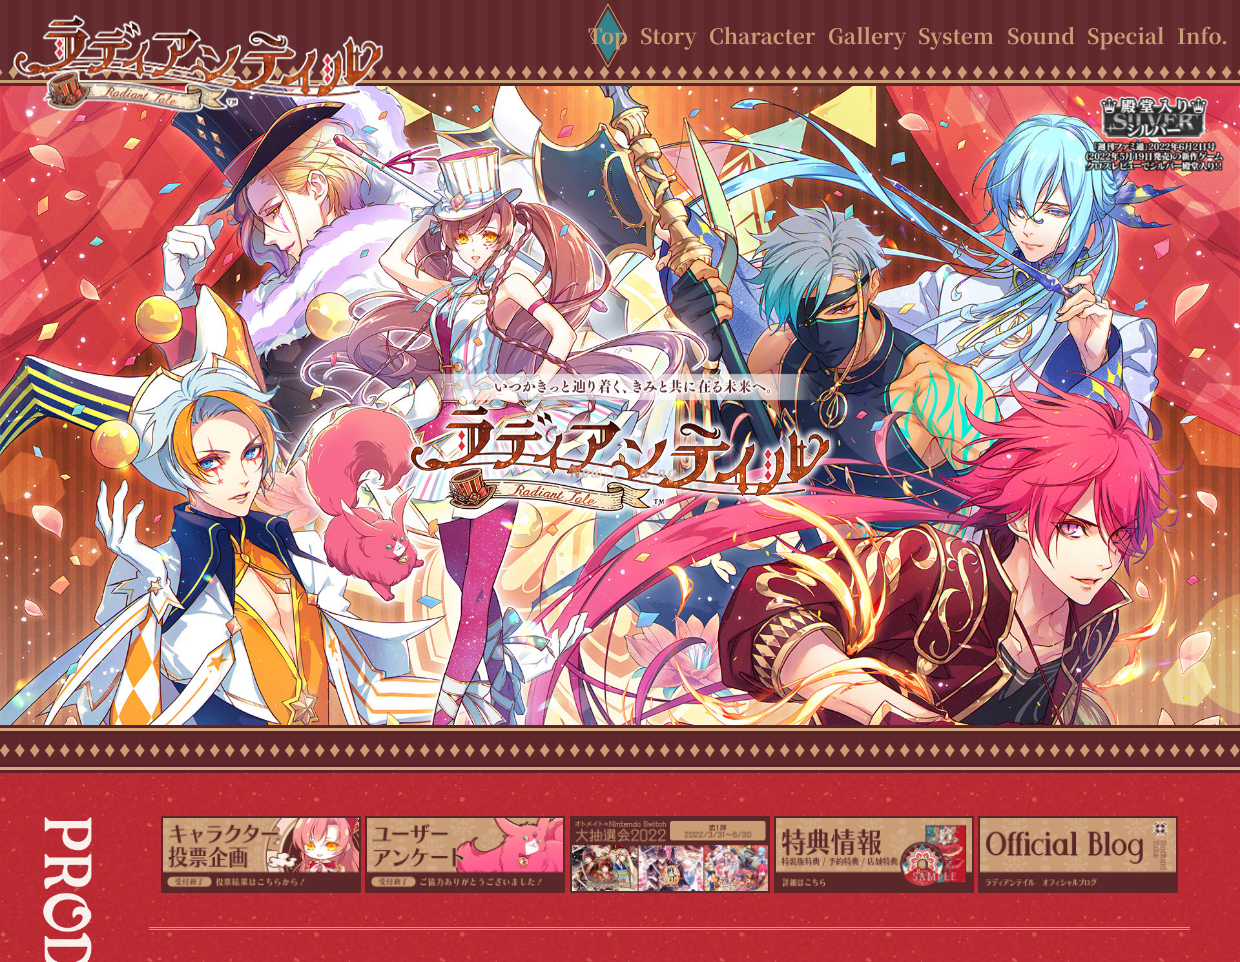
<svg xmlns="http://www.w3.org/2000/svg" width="1240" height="962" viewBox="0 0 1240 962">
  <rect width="100%" height="100%" fill="rgb(255,255,255)"/>
  <image x="0" y="0" width="1240" height="80" href="pic1.png"/>
  <rect x="0" y="80" width="1240" height="3" fill="rgb(202,158,118)"/>
  <rect x="0" y="83" width="1240" height="3" fill="rgb(92,39,42)"/>
  <image x="0" y="86" width="1240" height="639" href="pic5.png"/>
  <image x="13" y="15" width="371" height="98" href="pic2.png"/>
  <image x="590" y="4" width="36" height="63" href="pic3.png"/>
  <g font-family="Noto Serif JP" font-size="21" font-weight="bold" fill="rgb(202,158,118)">
    <text x="588" y="44">Top</text>
    <text x="640" y="44">Story</text>
    <text x="709" y="44">Character</text>
    <text x="828" y="44">Gallery</text>
    <text x="918" y="44">System</text>
    <text x="1007" y="44">Sound</text>
    <text x="1087" y="44">Special</text>
    <text x="1177" y="44">Info.</text>
  </g>
  <image x="0" y="773" width="1240" height="189" href="pic4.png"/>
  <image x="1084" y="96" width="140" height="76" href="pic6.png"/>
  <image x="404" y="373" width="433" height="145" href="pic7.png"/>
  <image x="0" y="725" width="1240" height="48" href="pic8.png"/>
  <image x="43" y="817" width="49" height="145" href="pic9.png"/>
  <rect x="149" y="927" width="1041" height="1" fill="rgb(202,158,118)"/>
  <rect x="149" y="929" width="1041" height="1" fill="rgb(202,158,118)"/>
  <rect x="162" y="817" width="198" height="75" fill="none" stroke="rgb(92,39,42)" stroke-width="2"/>
  <rect x="366" y="817" width="198" height="75" fill="none" stroke="rgb(92,39,42)" stroke-width="2"/>
  <rect x="571" y="817" width="198" height="75" fill="none" stroke="rgb(92,39,42)" stroke-width="2"/>
  <rect x="775" y="817" width="198" height="75" fill="none" stroke="rgb(92,39,42)" stroke-width="2"/>
  <rect x="979" y="817" width="198" height="75" fill="none" stroke="rgb(92,39,42)" stroke-width="2"/>
  <image x="163" y="818" width="196" height="73" href="pic10.png"/>
  <image x="367" y="818" width="196" height="73" href="pic11.png"/>
  <image x="572" y="818" width="196" height="73" href="pic12.png"/>
  <image x="776" y="818" width="196" height="73" href="pic13.png"/>
  <image x="980" y="818" width="196" height="73" href="pic14.png"/>
  <text x="569" y="478" font-family="Lobster" font-size="17" letter-spacing="-5" fill="rgb(191,132,112)">N</text>
  <text x="582" y="478" font-family="Lobster" font-size="17" letter-spacing="-5" fill="rgb(207,192,192)">o</text>
  <text x="591" y="478" font-family="Lobster" font-size="17" letter-spacing="-5" fill="rgb(224,210,203)">w</text>
  <text x="611" y="478" font-family="Lobster" font-size="17" letter-spacing="-5" fill="rgb(213,208,209)">L</text>
  <text x="640" y="478" font-family="Lobster" font-size="17" letter-spacing="-5" fill="rgb(205,154,133)">d</text>
  <text x="658" y="478" font-family="Lobster" font-size="17" letter-spacing="-5" fill="rgb(207,192,192)">n</text>
  <text x="668" y="478" font-family="Lobster" font-size="17" letter-spacing="-5" fill="rgb(215,198,193)">g</text>
</svg>
